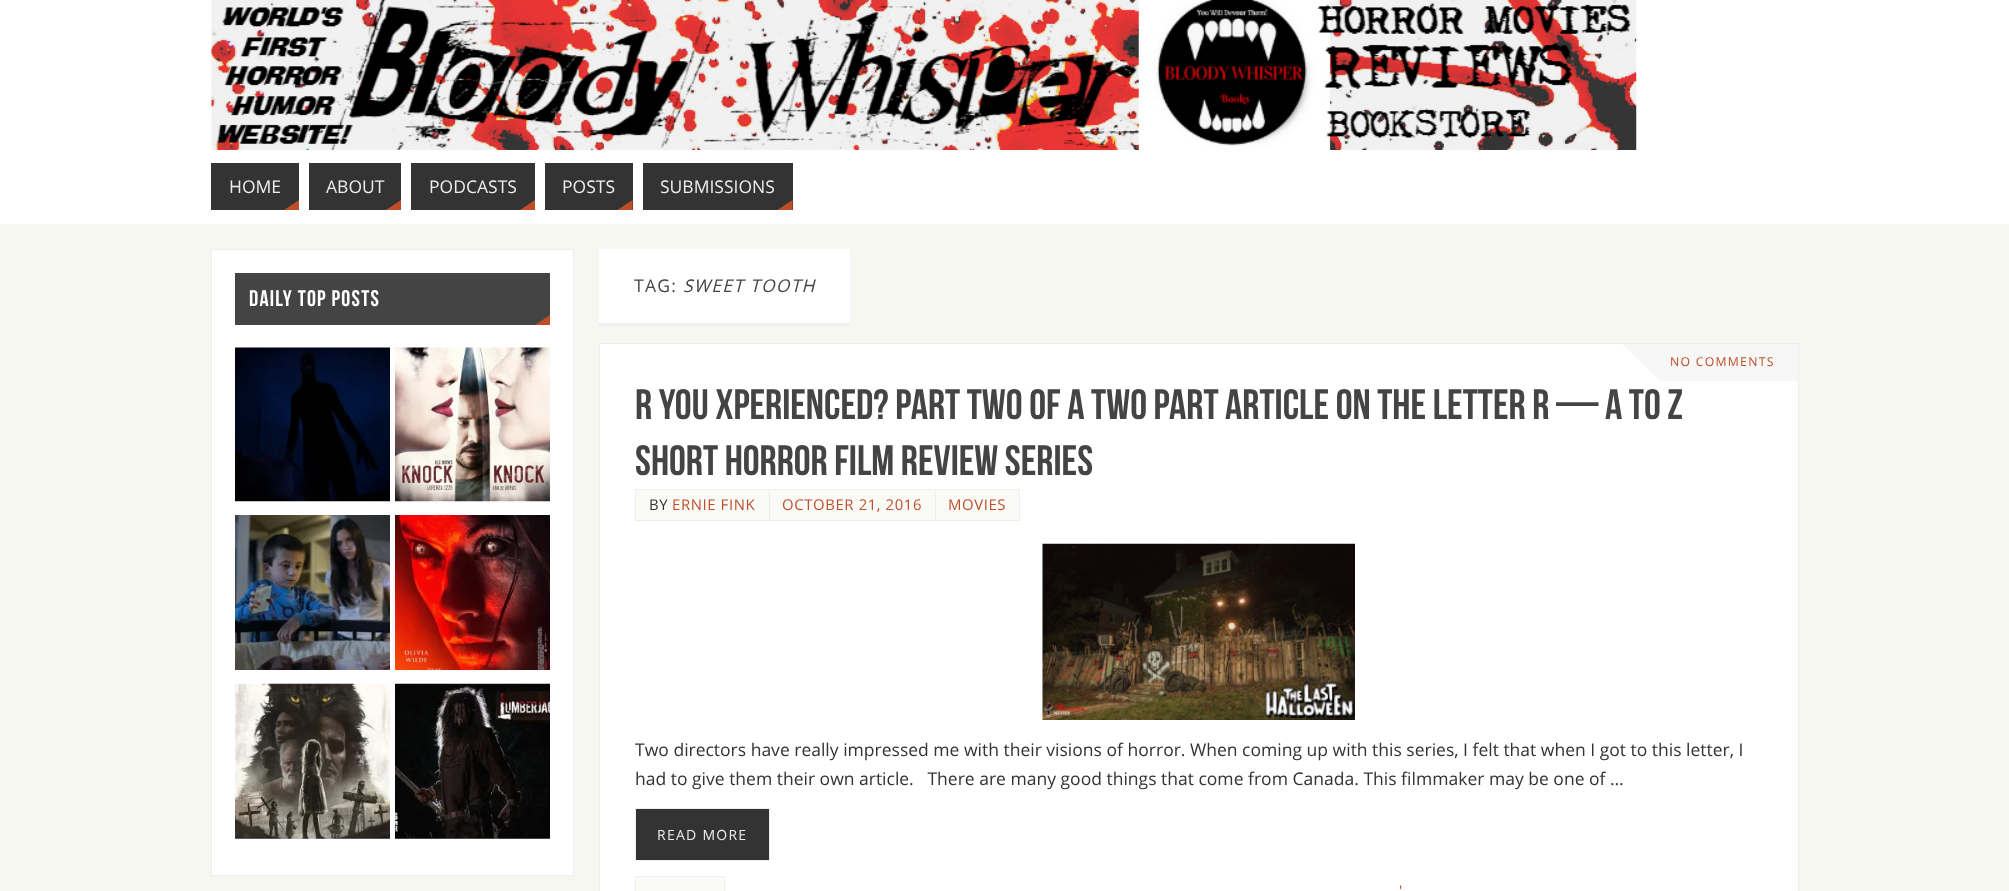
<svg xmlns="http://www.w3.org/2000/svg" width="2009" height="891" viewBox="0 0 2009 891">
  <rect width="100%" height="100%" fill="rgb(247,247,242)"/>
  <rect x="0" y="0" width="2009" height="224" fill="rgb(255,255,255)"/>
  <image x="211" y="0" width="1426" height="150" href="pic1.png"/>
  <rect x="211" y="163" width="88" height="47" fill="rgb(51,51,51)"/>
  <text x="229" y="193" font-family="Open Sans" font-size="17.5" fill="rgb(238,238,238)">HOME</text>
  <path d="M299 210H284L299 200Z" fill="rgb(191,77,40)"/>
  <rect x="309" y="163" width="92" height="47" fill="rgb(51,51,51)"/>
  <text x="326" y="193" font-family="Open Sans" font-size="17.5" fill="rgb(238,238,238)">ABOUT</text>
  <path d="M401 210H386L401 200Z" fill="rgb(191,77,40)"/>
  <rect x="411" y="163" width="124" height="47" fill="rgb(51,51,51)"/>
  <text x="429" y="193" font-family="Open Sans" font-size="17.5" fill="rgb(238,238,238)">PODCASTS</text>
  <path d="M535 210H520L535 200Z" fill="rgb(191,77,40)"/>
  <rect x="545" y="163" width="88" height="47" fill="rgb(51,51,51)"/>
  <text x="562" y="193" font-family="Open Sans" font-size="17.5" fill="rgb(238,238,238)">POSTS</text>
  <path d="M632.5 210H617.5L632.5 200Z" fill="rgb(191,77,40)"/>
  <rect x="643" y="163" width="150" height="47" fill="rgb(51,51,51)"/>
  <text x="660" y="193" font-family="Open Sans" font-size="17.5" fill="rgb(238,238,238)">SUBMISSIONS</text>
  <path d="M792.5 210H777.5L792.5 200Z" fill="rgb(191,77,40)"/>
  <rect x="211.5" y="249.5" width="362" height="626" fill="rgb(255,255,255)" stroke="rgb(238,238,238)"/>
  <rect x="235" y="273" width="315" height="52" fill="rgb(68,68,68)"/>
  <text x="249" y="306" font-family="Bebas Neue" font-size="22.5" letter-spacing="1.25" fill="rgb(255,255,255)">DAILY TOP POSTS</text>
  <path d="M550 325H535L550 315Z" fill="rgb(191,77,40)"/>
  <image x="235" y="347" width="155" height="155" href="pic2.png"/>
  <image x="395" y="347" width="155" height="155" href="pic3.png"/>
  <image x="235" y="515" width="155" height="155" href="pic4.png"/>
  <image x="395" y="515" width="155" height="155" href="pic5.png"/>
  <image x="235" y="683" width="155" height="156" href="pic6.png"/>
  <image x="395" y="683" width="155" height="156" href="pic7.png"/>
  <rect x="599" y="249" width="251" height="74" fill="rgb(255,255,255)"/>
  <rect x="599" y="323" width="251" height="3" fill="rgb(238,238,238)"/>
  <text x="634" y="292" font-family="Open Sans" font-size="17.5" letter-spacing="1.25" fill="rgb(68,68,68)">TAG:</text>
  <text x="683" y="292" font-family="Open Sans" font-size="17.5" font-style="italic" letter-spacing="1.25" fill="rgb(68,68,68)">SWEET TOOTH</text>
  <rect x="599.5" y="343.5" width="1199" height="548" fill="rgb(255,255,255)" stroke="rgb(238,238,238)"/>
  <rect x="1660" y="344" width="138" height="37" fill="rgb(247,247,247)"/>
  <path d="M1622.5 344H1660V381Z" fill="rgb(247,247,247)"/>
  <text x="1670" y="366" font-family="Open Sans" font-size="12.25" letter-spacing="1.25" fill="rgb(191,77,40)">NO COMMENTS</text>
  <g font-family="Bebas Neue" font-size="42.5" fill="rgb(68,68,68)">
    <text>
      <tspan x="635" y="419">R You Xperienced? Part Two of a Two Part Article on the Letter R — A to Z</tspan>
      <tspan x="635" y="475">Short Horror Film Review Series</tspan>
    </text>
  </g>
  <rect x="635.5" y="489.5" width="134" height="31" fill="rgb(250,250,247)" stroke="rgb(238,238,238)"/>
  <text x="649" y="510" font-family="Open Sans" font-size="14.9" letter-spacing="0.6" fill="rgb(51,51,51)">BY</text>
  <text x="672" y="510" font-family="Open Sans" font-size="14.9" letter-spacing="0.6" fill="rgb(191,77,40)">ERNIE FINK</text>
  <rect x="769.5" y="489.5" width="166" height="31" fill="rgb(250,250,247)" stroke="rgb(238,238,238)"/>
  <text x="782" y="510" font-family="Open Sans" font-size="14.9" letter-spacing="0.6" fill="rgb(191,77,40)">OCTOBER 21, 2016</text>
  <rect x="935.5" y="489.5" width="84" height="31" fill="rgb(250,250,247)" stroke="rgb(238,238,238)"/>
  <text x="948" y="510" font-family="Open Sans" font-size="14.9" letter-spacing="0.6" fill="rgb(191,77,40)">MOVIES</text>
  <image x="1042" y="543" width="313" height="177" href="pic8.png"/>
  <g font-family="Open Sans" font-size="17.5" fill="rgb(51,51,51)">
    <text xml:space="preserve"><tspan x="635" y="756">Two directors have really impressed me with their visions of horror. When coming up with this series, I felt that when I got to this letter, I</tspan><tspan x="635" y="785">had to give them their own article.   There are many good things that come from Canada. This filmmaker may be one of …</tspan></text>
  </g>
  <rect x="635.5" y="808.5" width="134" height="52" fill="rgb(51,51,51)" stroke="rgb(238,238,238)"/>
  <text x="657" y="840" font-family="Open Sans" font-size="14" letter-spacing="1.25" fill="rgb(238,238,238)">READ MORE</text>
  <rect x="635.5" y="876.5" width="89" height="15" fill="rgb(250,250,247)" stroke="rgb(238,238,238)"/>
  <text x="1399" y="896" font-family="Open Sans" font-size="14.9" fill="rgb(191,77,40)">'</text>
</svg>
